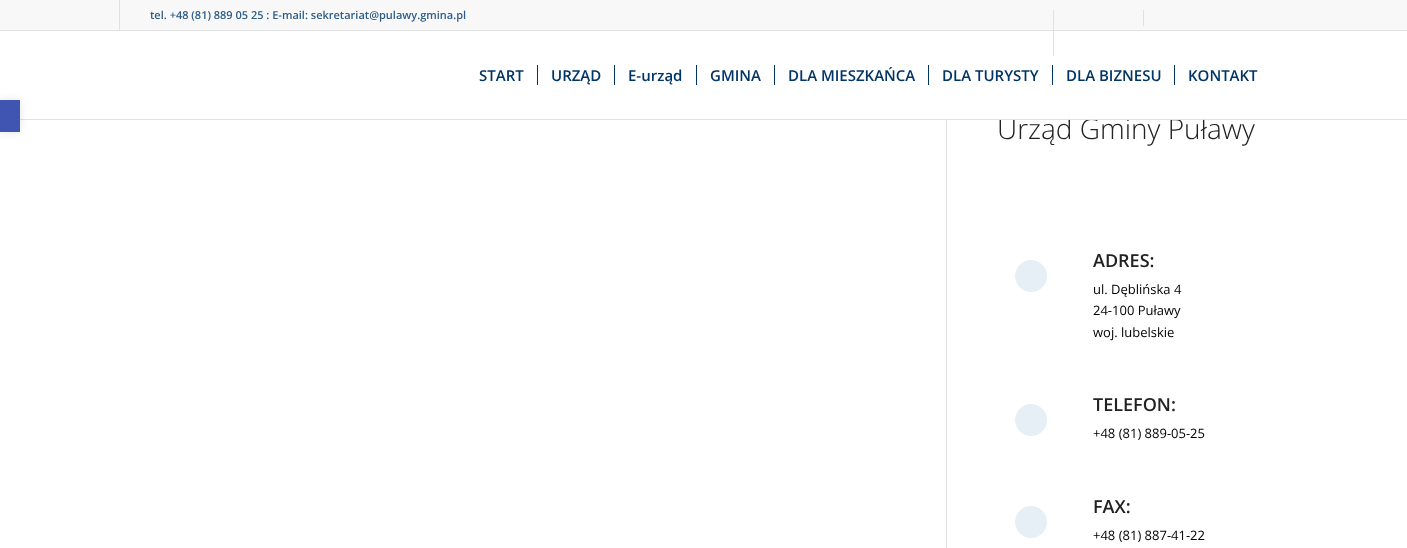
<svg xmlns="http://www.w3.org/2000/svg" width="1407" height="548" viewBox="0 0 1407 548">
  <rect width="100%" height="100%" fill="rgb(255,255,255)"/>
  <rect x="946" y="31" width="1" height="517" fill="rgb(225,225,225)"/>
  <text x="997" y="139" font-family="Open Sans" font-size="28" font-weight="300" fill="rgb(34,34,34)">Urząd Gminy Puławy</text>
  <rect x="20" y="119" width="1387" height="1" fill="rgb(225,225,225)"/>
  <rect x="0" y="100" width="20" height="32" fill="rgba(0,0,0,0.1)" filter="blur(5px)"/>
  <rect x="0" y="100" width="20" height="32" fill="rgb(64,84,178)"/>
  <rect x="997.5" y="0.5" width="311" height="32" rx="1.5" fill="rgb(252,252,252)" stroke="rgb(225,225,225)"/>
  <rect x="0" y="0" width="1407" height="30" fill="rgb(248,248,248)"/>
  <rect x="0" y="30" width="1407" height="1" fill="rgb(225,225,225)"/>
  <rect x="119" y="0" width="1" height="30" fill="rgb(225,225,225)"/>
  <text x="150" y="19" font-family="Open Sans" font-size="11" font-weight="600" fill="rgb(45,92,136)">tel. +48 (81) 889 05 25 : E-mail: sekretariat@pulawy.gmina.pl</text>
  <rect x="946" y="31" width="363" height="88" fill="rgba(255,255,255,0.95)"/>
  <rect x="1053" y="10" width="1" height="46" fill="rgb(225,225,225)"/>
  <rect x="1143" y="10" width="1" height="16" fill="rgb(225,225,225)"/>
  <g font-family="Open Sans" font-size="15" font-weight="600" fill="rgb(0,53,102)">
    <text x="479" y="81">START</text>
    <text x="551" y="81">URZĄD</text>
  </g>
  <rect x="537" y="65" width="1" height="20" fill="rgb(0,53,102)"/>
  <text x="628" y="81" font-family="Open Sans" font-size="15" font-weight="600" fill="rgb(0,53,102)">E-urząd</text>
  <rect x="614" y="65" width="1" height="20" fill="rgb(0,53,102)"/>
  <text x="710" y="81" font-family="Open Sans" font-size="15" font-weight="600" fill="rgb(0,53,102)">GMINA</text>
  <rect x="696" y="65" width="1" height="20" fill="rgb(0,53,102)"/>
  <text x="788" y="81" font-family="Open Sans" font-size="15" font-weight="600" fill="rgb(0,53,102)">DLA MIESZKAŃCA</text>
  <rect x="774" y="65" width="1" height="20" fill="rgb(0,53,102)"/>
  <text x="942" y="81" font-family="Open Sans" font-size="15" font-weight="600" fill="rgb(0,53,102)">DLA TURYSTY</text>
  <rect x="928" y="65" width="1" height="20" fill="rgb(0,53,102)"/>
  <text x="1066" y="81" font-family="Open Sans" font-size="15" font-weight="600" fill="rgb(0,53,102)">DLA BIZNESU</text>
  <rect x="1052" y="65" width="1" height="20" fill="rgb(0,53,102)"/>
  <text x="1188" y="81" font-family="Open Sans" font-size="15" font-weight="600" fill="rgb(0,53,102)">KONTAKT</text>
  <rect x="1174" y="65" width="1" height="20" fill="rgb(0,53,102)"/>
  <circle cx="1031" cy="276" r="16" fill="rgb(230,238,246)"/>
  <text x="1093" y="267" font-family="Open Sans" font-size="18" font-weight="600" fill="rgb(34,34,34)">ADRES:</text>
  <g font-family="Open Sans" font-size="13" fill="rgb(0,0,0)">
    <text>
      <tspan x="1093" y="294">ul. Dęblińska 4</tspan>
      <tspan x="1093" y="315">24-100 Puławy</tspan>
      <tspan x="1093" y="337">woj. lubelskie</tspan>
    </text>
  </g>
  <circle cx="1031" cy="420" r="16" fill="rgb(230,238,246)"/>
  <text x="1093" y="411" font-family="Open Sans" font-size="18" font-weight="600" fill="rgb(34,34,34)">TELEFON:</text>
  <text x="1093" y="438" font-family="Open Sans" font-size="13" fill="rgb(0,0,0)">+48 (81) 889-05-25</text>
  <circle cx="1031" cy="522" r="16" fill="rgb(230,238,246)"/>
  <text x="1093" y="513" font-family="Open Sans" font-size="18" font-weight="600" fill="rgb(34,34,34)">FAX:</text>
  <text x="1093" y="540" font-family="Open Sans" font-size="13" fill="rgb(0,0,0)">+48 (81) 887-41-22</text>
</svg>
